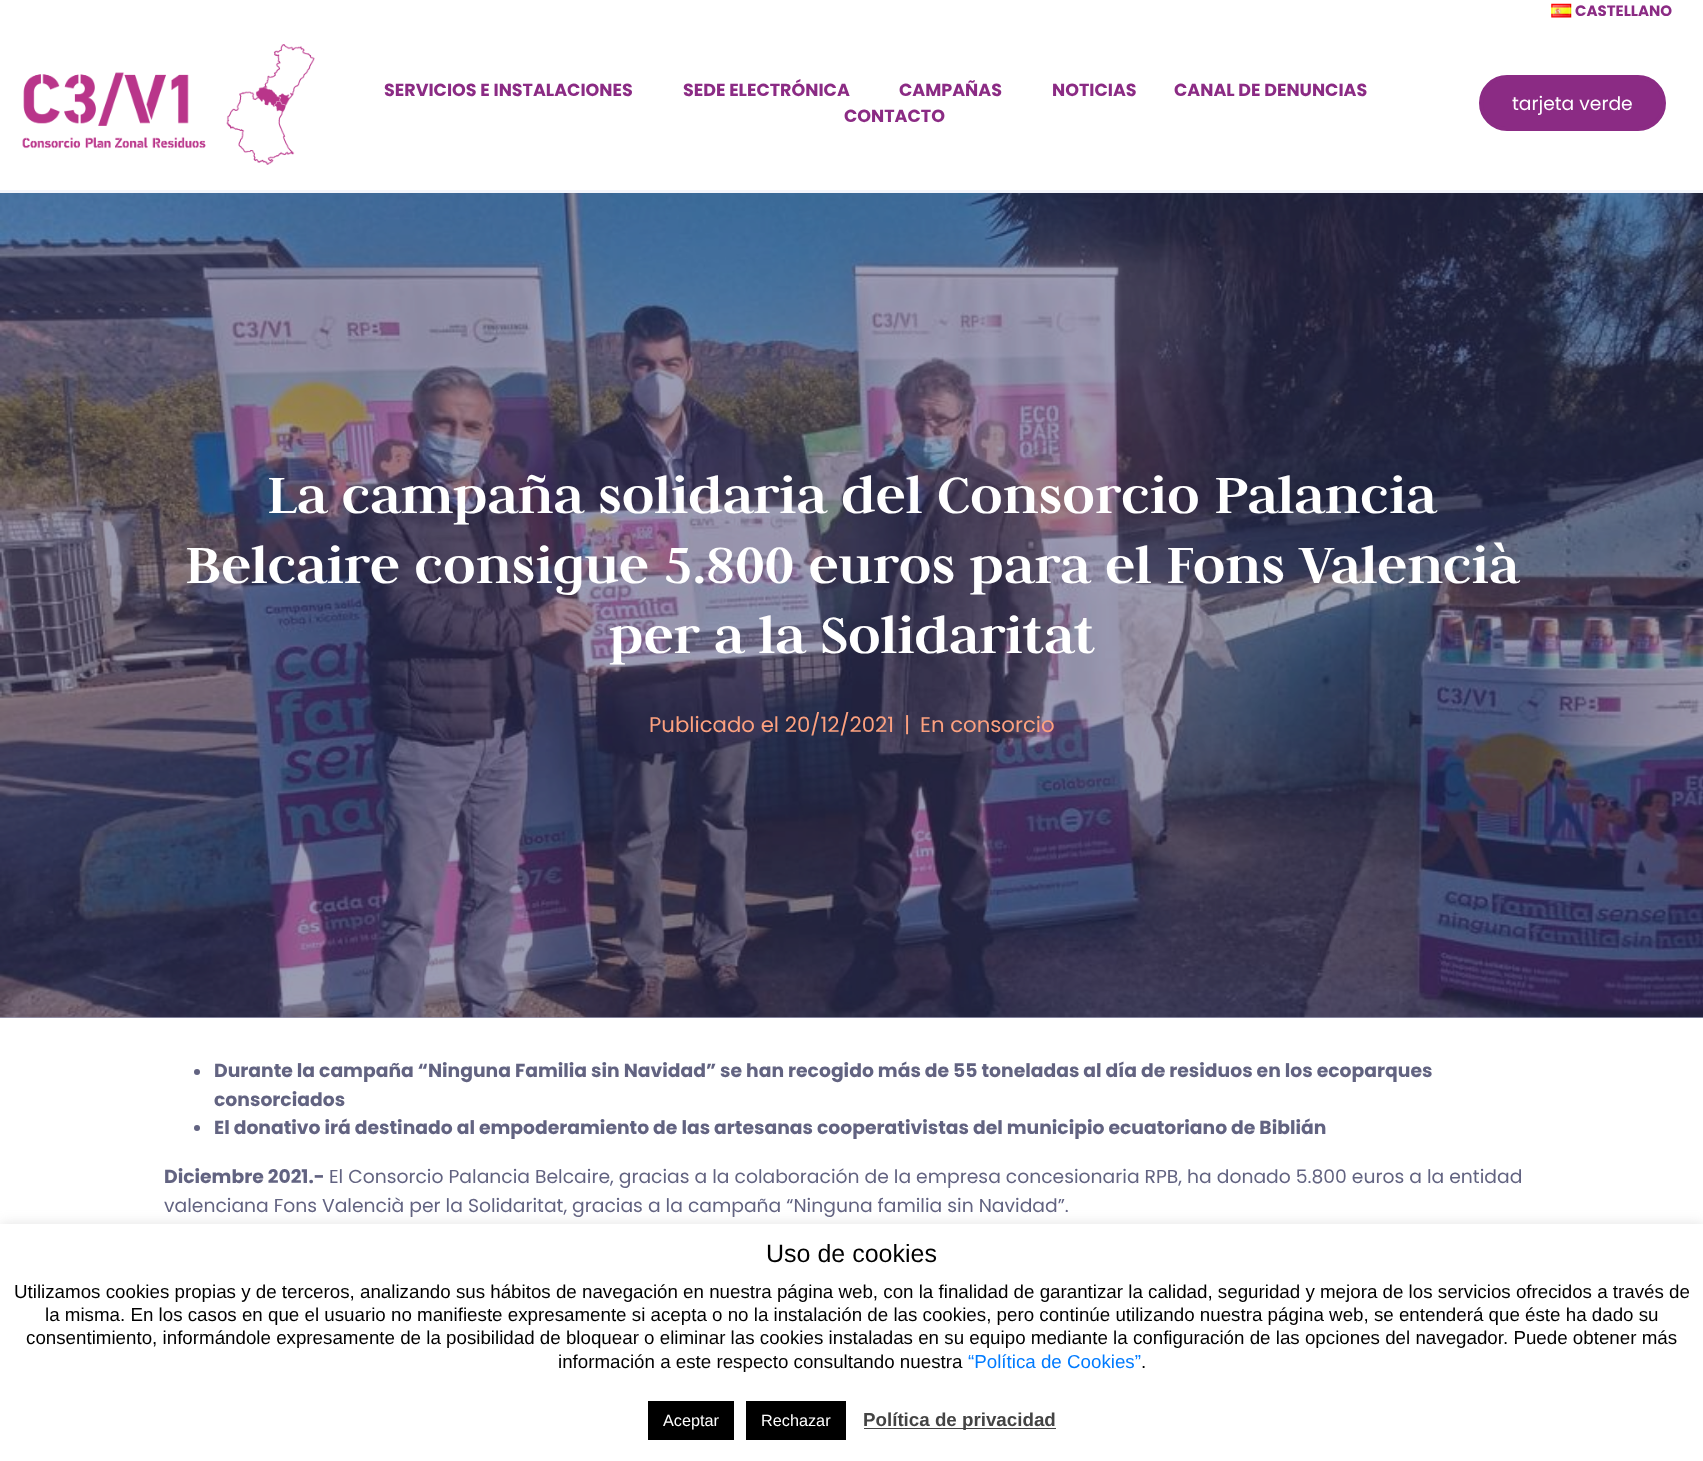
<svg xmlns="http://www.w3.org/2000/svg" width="1703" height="1461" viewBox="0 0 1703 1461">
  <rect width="100%" height="100%" fill="rgb(255,255,255)"/>
  <rect x="0" y="1017" width="1703" height="1" fill="rgb(155,157,182)"/>
  <image x="1551" y="3" width="21" height="15" href="pic1.png"/>
  <text x="1575" y="16" font-family="Poppins" font-size="15" font-weight="bold" fill="rgb(139,43,132)">CASTELLANO</text>
  <rect x="0" y="190" width="1703" height="3" fill="rgb(243,245,251)"/>
  <image x="22" y="44" width="293" height="121" href="pic2.png"/>
  <g font-family="Poppins" font-size="17.5" font-weight="bold" fill="rgb(139,43,132)">
    <text x="384" y="96">SERVICIOS E INSTALACIONES</text>
    <text x="683" y="96">SEDE ELECTRÓNICA</text>
    <text x="899" y="96">CAMPAÑAS</text>
    <text x="1052" y="96">NOTICIAS</text>
    <text x="1174" y="96">CANAL DE DENUNCIAS</text>
    <text x="844" y="122">CONTACTO</text>
  </g>
  <rect x="1481" y="77" width="183" height="52" rx="26" fill="rgb(139,43,132)" stroke="rgb(139,43,132)" stroke-width="4"/>
  <text x="1512" y="110" font-family="Poppins" font-size="18.75" fill="rgb(255,255,255)">tarjeta verde</text>
  <image x="0" y="193" width="1703" height="825" href="pic3.png"/>
  <g font-family="Judson" font-size="60" font-weight="bold" fill="rgb(255,255,255)">
    <text x="267" y="513">La campaña solidaria del Consorcio Palancia</text>
    <text x="185" y="583">Belcaire consigue 5.800 euros para el Fons Valencià</text>
    <text x="609" y="653">per a la Solidaritat</text>
  </g>
  <g font-family="Poppins" font-size="21.25" fill="rgb(253,161,127)">
    <text x="649" y="732">Publicado el 20/12/2021</text>
    <text x="904" y="732">|</text>
    <text x="920" y="732">En consorcio</text>
  </g>
  <circle cx="197" cy="1072" r="3" fill="rgb(98,99,129)"/>
  <g font-family="Poppins" font-size="18.75" font-weight="bold" fill="rgb(98,99,129)">
    <text>
      <tspan x="214" y="1077">Durante la campaña “Ninguna Familia sin Navidad” se han recogido más de 55 toneladas al día de residuos en los ecoparques</tspan>
      <tspan x="214" y="1106">consorciados</tspan>
    </text>
  </g>
  <circle cx="197" cy="1128" r="3" fill="rgb(98,99,129)"/>
  <g font-family="Poppins" font-size="18.75" font-weight="bold" fill="rgb(98,99,129)">
    <text x="214" y="1134">El donativo irá destinado al empoderamiento de las artesanas cooperativistas del municipio ecuatoriano de Biblián</text>
    <text x="164" y="1183">Diciembre 2021.-</text>
  </g>
  <g font-family="Poppins" font-size="18.75" fill="rgb(98,99,129)">
    <text x="329" y="1183">El Consorcio Palancia Belcaire, gracias a la colaboración de la empresa concesionaria RPB, ha donado 5.800 euros a la entidad</text>
    <text x="164" y="1212">valenciana Fons Valencià per la Solidaritat, gracias a la campaña “Ninguna familia sin Navidad”.</text>
  </g>
  <rect x="0" y="1223" width="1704" height="237" fill="rgba(172,171,171,0.3)" filter="blur(6px)"/>
  <rect x="0" y="1224" width="1703" height="237" fill="rgb(255,255,255)"/>
  <text x="766" y="1262" font-family="Liberation Sans" font-size="25" fill="rgb(0,0,0)">Uso de cookies</text>
  <g font-family="Liberation Sans" font-size="18.75" fill="rgb(0,0,0)">
    <text x="14" y="1298">Utilizamos cookies propias y de terceros, analizando sus hábitos de navegación en nuestra página web, con la finalidad de garantizar la calidad, seguridad y mejora de los servicios ofrecidos a través de</text>
    <text x="45" y="1321">la misma. En los casos en que el usuario no manifieste expresamente si acepta o no la instalación de las cookies, pero continúe utilizando nuestra página web, se entenderá que éste ha dado su</text>
    <text x="26" y="1344">consentimiento, informándole expresamente de la posibilidad de bloquear o eliminar las cookies instaladas en su equipo mediante la configuración de las opciones del navegador. Puede obtener más</text>
    <text x="558" y="1368">información a este respecto consultando nuestra</text>
  </g>
  <text x="968" y="1368" font-family="Liberation Sans" font-size="18.75" fill="rgb(0,123,255)">“Política de Cookies”</text>
  <text x="1141" y="1368" font-family="Liberation Sans" font-size="18.75" fill="rgb(0,0,0)">.</text>
  <rect x="648" y="1401" width="86" height="39" fill="rgb(0,0,0)"/>
  <text x="663" y="1426" font-family="Liberation Sans" font-size="16.25" fill="rgb(255,255,255)">Aceptar</text>
  <rect x="746" y="1401" width="100" height="39" fill="rgb(0,0,0)"/>
  <text x="761" y="1426" font-family="Liberation Sans" font-size="16.25" fill="rgb(255,255,255)">Rechazar</text>
  <rect x="864" y="1428" width="192" height="1" fill="rgb(68,68,68)"/>
  <text x="863" y="1426" font-family="Liberation Sans" font-size="18.75" font-weight="bold" fill="rgb(68,68,68)">Política de privacidad</text>
</svg>
